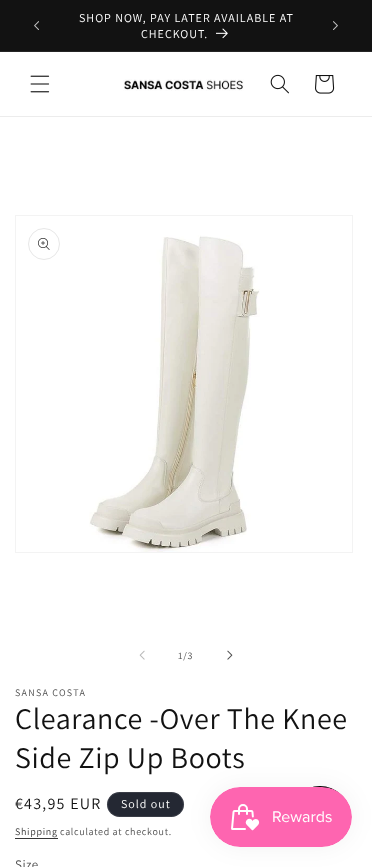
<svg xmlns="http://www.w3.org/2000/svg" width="372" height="867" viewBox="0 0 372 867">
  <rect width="100%" height="100%" fill="rgb(255,255,255)"/>
  <rect x="0" y="0" width="372" height="51" fill="rgb(18,18,18)"/>
  <rect x="0" y="51" width="372" height="1" fill="rgb(37,37,37)"/>
  <image x="34" y="21" width="5" height="9" href="pic1.png"/>
  <g font-family="Assistant" font-size="12" letter-spacing="1" fill="rgb(255,255,255)">
    <text x="79" y="22">SHOP NOW, PAY LATER AVAILABLE AT</text>
    <text x="141" y="38">CHECKOUT.</text>
  </g>
  <image x="216" y="28" width="12" height="11" href="pic2.png"/>
  <image x="333" y="21" width="5" height="9" href="pic3.png"/>
  <rect x="0" y="116" width="372" height="1" fill="rgb(236,236,236)"/>
  <image x="30" y="75" width="20" height="18" href="pic4.png"/>
  <image x="123" y="79" width="121" height="12" href="pic5.png"/>
  <image x="270" y="74" width="19" height="20" href="pic6.png"/>
  <image x="315" y="75" width="20" height="19" href="pic7.png"/>
  <rect x="15.5" y="215.5" width="337" height="337" fill="none" stroke="rgb(243,243,243)"/>
  <circle cx="44" cy="244" r="15.5" fill="none" stroke="rgb(231,231,231)"/>
  <image x="38" y="238" width="12" height="12" href="pic8.png"/>
  <image x="89" y="235" width="171" height="317" href="pic9.png"/>
  <image x="139" y="650" width="6" height="10" href="pic10.png"/>
  <text x="178" y="659" font-family="Assistant" font-size="10" letter-spacing="0.7" fill="rgb(77,77,77)">1/3</text>
  <image x="227" y="650" width="6" height="10" href="pic11.png"/>
  <text x="15" y="696" font-family="Assistant" font-size="10" letter-spacing="1.25" fill="rgb(77,77,77)">SANSA COSTA</text>
  <g font-family="Assistant" font-size="30" letter-spacing="0.6" fill="rgb(18,18,18)">
    <text>
      <tspan x="15" y="729">Clearance -Over The Knee</tspan>
      <tspan x="15" y="768">Side Zip Up Boots</tspan>
    </text>
  </g>
  <text x="15" y="809" font-family="Assistant" font-size="16" letter-spacing="1.25" fill="rgb(18,18,18)">€43,95 EUR</text>
  <rect x="107" y="792" width="77" height="25" rx="12.5" fill="rgb(36,40,51)"/>
  <rect x="107.5" y="792.5" width="76" height="24" rx="12" fill="none" stroke="rgba(255,255,255,0.1)"/>
  <text x="121" y="808" font-family="Assistant" font-size="12" letter-spacing="1" fill="rgb(255,255,255)">Sold out</text>
  <text x="15" y="835" font-family="Assistant" font-size="10" letter-spacing="0.7" fill="rgb(54,54,54)">Shipping</text>
  <rect x="15" y="838" width="43" height="1" fill="rgb(54,54,54)"/>
  <text x="60" y="835" font-family="Assistant" font-size="10" letter-spacing="0.7" fill="rgb(77,77,77)">calculated at checkout.</text>
  <text x="15" y="869" font-family="Assistant" font-size="13" letter-spacing="0.5" fill="rgb(77,77,77)">Size</text>
  <circle cx="320" cy="816" r="30" fill="rgb(0,0,0)"/>
  <rect x="210" y="787" width="142" height="60" rx="30" fill="rgba(0,0,0,0.05)" filter="blur(12.5px)"/>
  <image x="210" y="787" width="142" height="60" href="pic12.png"/>
</svg>
